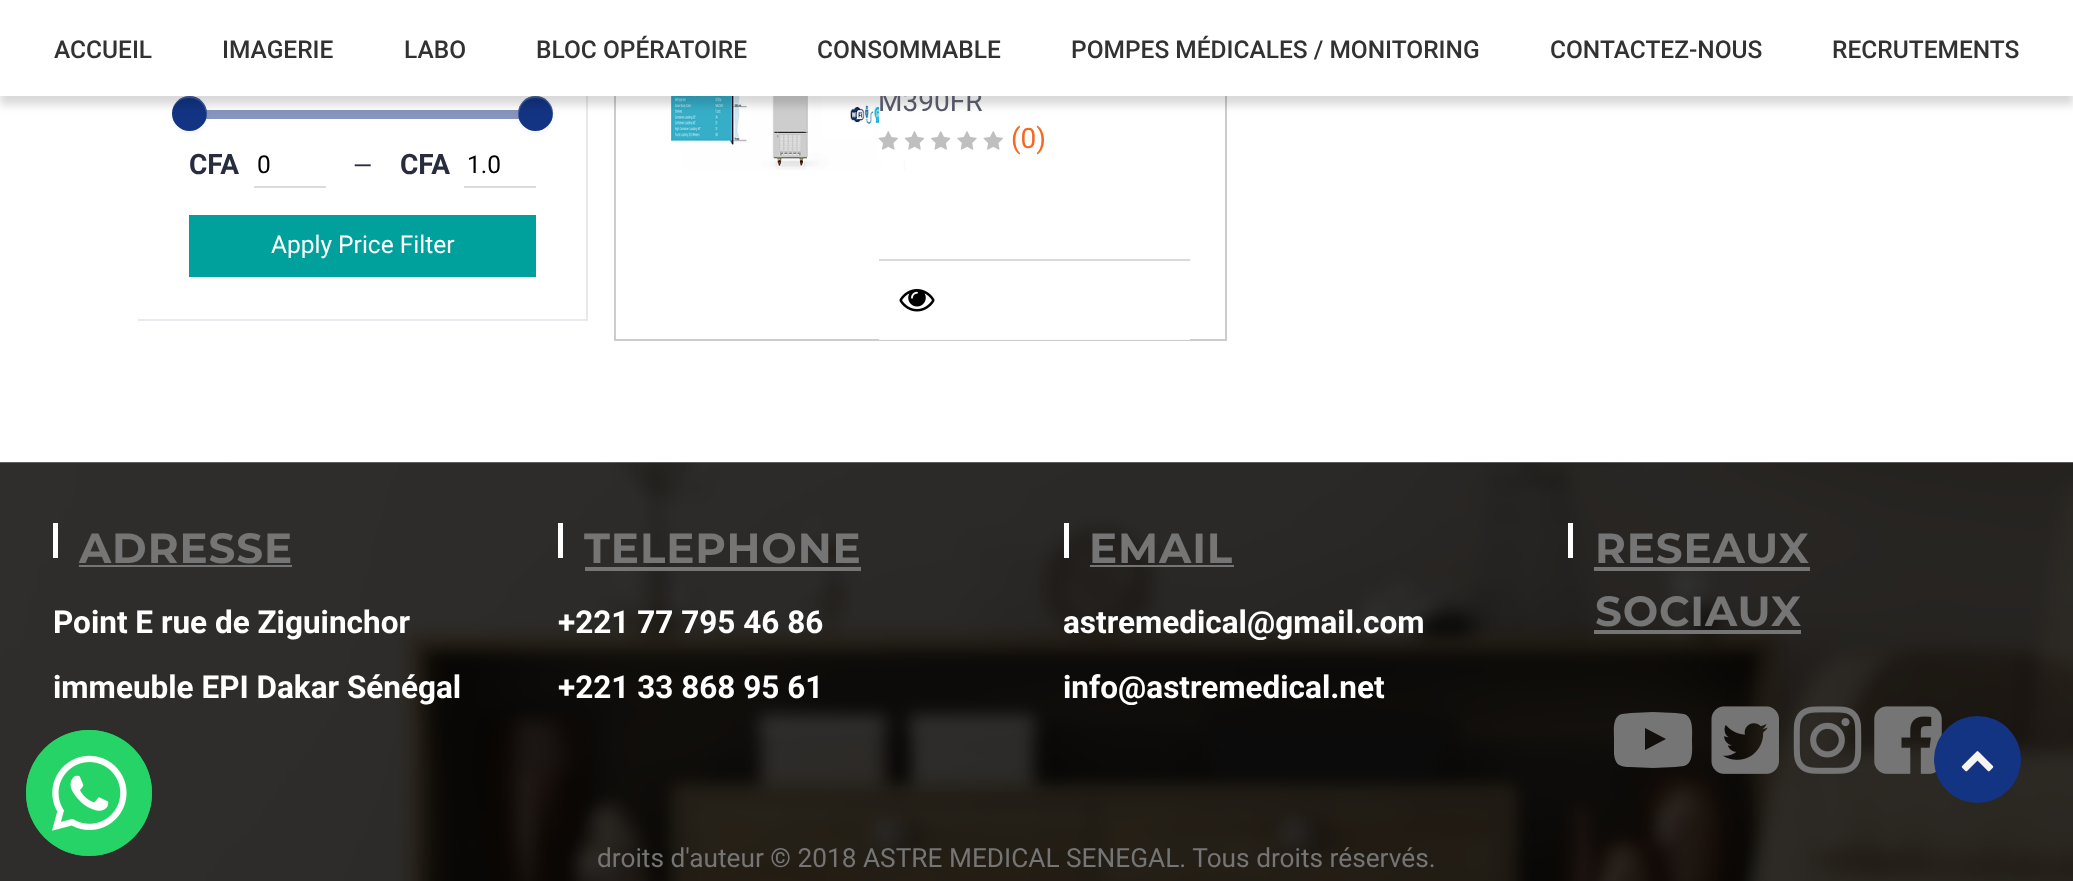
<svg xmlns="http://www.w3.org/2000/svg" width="2073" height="881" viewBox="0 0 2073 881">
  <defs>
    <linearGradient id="g1" gradientUnits="userSpaceOnUse" x1="362" y1="110" x2="362" y2="119"><stop offset="0" stop-color="rgb(245,245,245)"/><stop offset="1" stop-color="rgb(249,249,249)"/></linearGradient>
  </defs>
  <rect width="100%" height="100%" fill="rgb(255,255,255)"/>
  <rect x="615" y="-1" width="611" height="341" fill="none" stroke="rgb(204,204,204)" stroke-width="2"/>
  <image x="671" y="96" width="234" height="74" href="pic1.png"/>
  <rect x="879" y="96" width="26" height="65" fill="rgb(255,255,255)"/>
  <rect x="586" y="96" width="2" height="224" fill="rgb(233,233,237)"/>
  <rect x="206" y="110" width="313" height="9" fill="url(#g1)"/>
  <rect x="206" y="110" width="313" height="9" fill="rgba(19,52,131,0.5)"/>
  <rect x="172" y="98" width="35" height="35" rx="17.5" fill="rgba(0,0,0,0.05)" filter="blur(2px)"/>
  <circle cx="189.5" cy="113.5" r="17.5" fill="rgb(19,52,131)"/>
  <path d="M189 98C202.5 98 208 110 205.5 120C212.5 103.5 191.5 88 177.5 100.5C174.5 103.5 172.5 107.5 172 112C173.5 104.5 179 98 189 98Z" fill="rgba(255,255,255,0.2)"/>
  <rect x="518" y="98" width="35" height="35" rx="17.5" fill="rgba(0,0,0,0.05)" filter="blur(2px)"/>
  <circle cx="535.5" cy="113.5" r="17.5" fill="rgb(19,52,131)"/>
  <path d="M536 98C548 98 553.5 109 552.5 118.5C557 103 539.5 90 525.5 99C523 101 520.5 103.5 519.5 106.5C517.5 111 517.5 116 519.5 120C517 110 522.5 98 536 98Z" fill="rgba(255,255,255,0.2)"/>
  <rect x="0" y="9" width="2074" height="96" fill="rgba(0,0,0,0.15)" filter="blur(4.5px)"/>
  <text x="878" y="111" font-family="Roboto" font-size="28" fill="rgb(83,87,102)">M390FR</text>
  <rect x="0" y="0" width="2073" height="96" fill="rgb(255,255,255)"/>
  <g font-family="Roboto" font-size="24.5" font-weight="500" fill="rgb(50,50,50)">
    <text x="54" y="58">ACCUEIL</text>
    <text x="222" y="58">IMAGERIE</text>
    <text x="404" y="58">LABO</text>
    <text x="536" y="58">BLOC OPÉRATOIRE</text>
    <text x="817" y="58">CONSOMMABLE</text>
    <text x="1071" y="58">POMPES MÉDICALES / MONITORING</text>
    <text x="1550" y="58">CONTACTEZ-NOUS</text>
    <text x="1832" y="58">RECRUTEMENTS</text>
  </g>
  <image x="878" y="131" width="20" height="19" href="pic2.png"/>
  <image x="904" y="131" width="21" height="19" href="pic3.png"/>
  <image x="931" y="131" width="20" height="19" href="pic4.png"/>
  <image x="957" y="131" width="20" height="19" href="pic5.png"/>
  <image x="983" y="131" width="20" height="19" href="pic6.png"/>
  <text x="1011" y="148" font-family="Roboto" font-size="28" fill="rgb(246,104,35)">(0)</text>
  <rect x="879" y="339" width="311" height="1" fill="rgba(255,255,255,0.9)"/>
  <rect x="879" y="259" width="311" height="2" fill="rgb(217,217,217)"/>
  <image x="899" y="289" width="36" height="23" href="pic7.png"/>
  <rect x="138" y="319" width="450" height="2" fill="rgb(233,233,237)"/>
  <text x="189" y="174" font-family="Roboto" font-size="28" font-weight="bold" fill="rgb(40,44,63)">CFA</text>
  <rect x="254" y="186" width="72" height="2" fill="rgb(217,219,220)"/>
  <text x="257" y="173" font-family="Roboto" font-size="24.5" fill="rgb(0,0,0)">0</text>
  <text x="353" y="174" font-family="Roboto" font-size="24.5" fill="rgb(40,44,63)">—</text>
  <text x="400" y="174" font-family="Roboto" font-size="28" font-weight="bold" fill="rgb(40,44,63)">CFA</text>
  <rect x="464" y="186" width="72" height="2" fill="rgb(217,219,220)"/>
  <text x="467" y="173" font-family="Roboto" font-size="24.5" fill="rgb(0,0,0)">1.0</text>
  <rect x="189" y="215" width="347" height="62" fill="rgb(0,160,157)"/>
  <text x="271" y="253" font-family="Roboto" font-size="24.5" fill="rgb(255,255,255)">Apply Price Filter</text>
  <image x="0" y="462" width="2073" height="419" href="pic8.png"/>
  <rect x="53" y="523" width="5" height="35" fill="rgb(255,255,255)"/>
  <text x="79" y="563" font-family="Montserrat" font-size="42" font-weight="bold" letter-spacing="0.9" fill="rgb(117,117,117)">ADRESSE</text>
  <rect x="79" y="565" width="213" height="2" fill="rgb(117,117,117)"/>
  <g font-family="Roboto" font-size="31.5" font-weight="bold" fill="rgb(255,255,255)">
    <text x="53" y="633">Point E rue de Ziguinchor</text>
    <text x="53" y="698">immeuble EPI Dakar Sénégal</text>
  </g>
  <rect x="558" y="523" width="5" height="35" fill="rgb(255,255,255)"/>
  <text x="584" y="563" font-family="Montserrat" font-size="42" font-weight="bold" letter-spacing="0.9" fill="rgb(117,117,117)">TELEPHONE</text>
  <rect x="585" y="567" width="276" height="4" fill="rgb(117,117,117)"/>
  <g font-family="Roboto" font-size="31.5" font-weight="bold" fill="rgb(255,255,255)">
    <text x="558" y="633">+221 77 795 46 86</text>
    <text x="558" y="698">+221 33 868 95 61</text>
  </g>
  <rect x="1064" y="523" width="5" height="35" fill="rgb(255,255,255)"/>
  <text x="1089" y="563" font-family="Montserrat" font-size="42" font-weight="bold" letter-spacing="0.9" fill="rgb(117,117,117)">EMAIL</text>
  <rect x="1090" y="565" width="144" height="2" fill="rgb(117,117,117)"/>
  <g font-family="Roboto" font-size="31.5" font-weight="bold" fill="rgb(255,255,255)">
    <text x="1063" y="633">astremedical@gmail.com</text>
    <text x="1063" y="698">info@astremedical.net</text>
  </g>
  <rect x="1568" y="523" width="5" height="35" fill="rgb(255,255,255)"/>
  <text x="1595" y="563" font-family="Montserrat" font-size="42" font-weight="bold" letter-spacing="0.9" fill="rgb(117,117,117)">RESEAUX</text>
  <rect x="1594" y="567" width="216" height="4" fill="rgb(117,117,117)"/>
  <text x="1595" y="626" font-family="Montserrat" font-size="42" font-weight="bold" letter-spacing="0.9" fill="rgb(117,117,117)">SOCIAUX</text>
  <rect x="1594" y="630" width="207" height="4" fill="rgb(117,117,117)"/>
  <path d="M1645 750L1666 739L1645 728ZM1653 712L1676 713L1684 714C1694 717 1692 732 1692 740C1692 748 1694 763 1684 766L1675 767L1653 768L1630 767C1620 767 1615 765 1614 754V739C1614 731 1612 716 1622 714L1631 713Z" fill="rgb(117,117,117)"/>
  <image x="1711" y="706" width="68" height="68" href="pic9.png"/>
  <image x="1793" y="706" width="69" height="68" href="pic10.png"/>
  <image x="1874" y="706" width="68" height="68" href="pic11.png"/>
  <text x="597" y="867" font-family="Roboto" font-size="26.25" fill="rgb(117,117,117)">droits d'auteur © 2018 ASTRE MEDICAL SENEGAL. Tous droits réservés.</text>
  <circle cx="1977.5" cy="759.5" r="43.5" fill="rgb(19,52,131)"/>
  <image x="1961" y="751" width="33" height="21" href="pic12.png"/>
  <circle cx="89" cy="793" r="63" fill="rgb(37,211,102)"/>
  <image x="26" y="730" width="126" height="126" href="pic13.png"/>
</svg>
